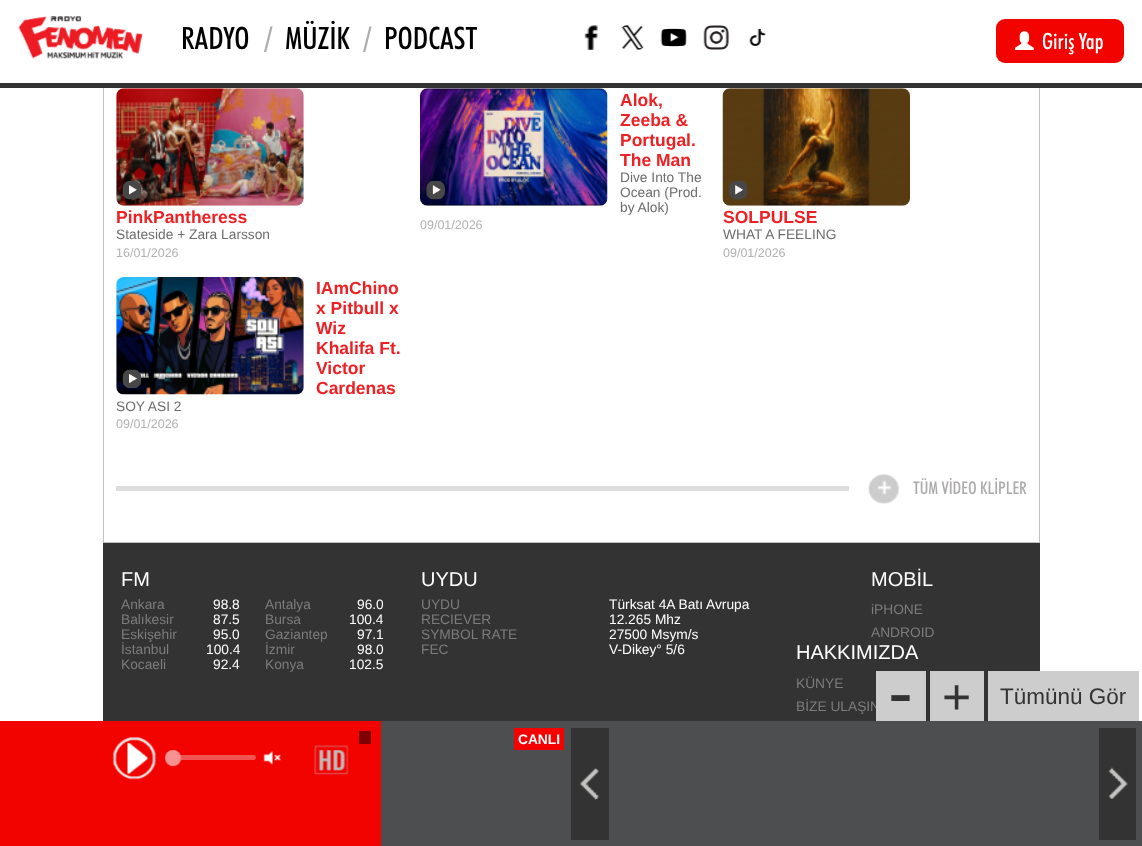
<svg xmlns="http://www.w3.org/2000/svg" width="1142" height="846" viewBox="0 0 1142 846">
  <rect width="100%" height="100%" fill="rgb(255,255,255)"/>
  <rect x="103.5" y="-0.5" width="936" height="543" fill="none" stroke="rgb(193,193,193)"/>
  <rect x="103" y="0" width="937" height="83" fill="rgb(255,255,255)"/>
  <rect x="0" y="83" width="1142" height="5" fill="rgb(51,51,51)"/>
  <image x="18" y="16" width="125" height="43" href="pic1.png"/>
  <text x="181" y="49" font-family="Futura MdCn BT" font-size="31" font-weight="500" fill="rgb(0,0,0)">RADYO</text>
  <text x="264" y="49" font-family="Futura MdCn BT" font-size="31" font-weight="500" fill="rgb(173,171,171)">/</text>
  <text x="285" y="49" font-family="Futura MdCn BT" font-size="31" font-weight="500" fill="rgb(0,0,0)">MÜZİK</text>
  <text x="363" y="49" font-family="Futura MdCn BT" font-size="31" font-weight="500" fill="rgb(173,171,171)">/</text>
  <text x="384" y="49" font-family="Futura MdCn BT" font-size="31" font-weight="500" fill="rgb(0,0,0)">PODCAST</text>
  <image x="584" y="25" width="14" height="25" href="pic2.png"/>
  <image x="621" y="25" width="23" height="25" href="pic3.png"/>
  <image x="660" y="28" width="27" height="19" href="pic4.png"/>
  <image x="703" y="25" width="26" height="25" href="pic5.png"/>
  <image x="749" y="28" width="17" height="18" href="pic6.png"/>
  <rect x="996" y="19" width="128" height="44" rx="9" fill="rgb(242,3,0)"/>
  <image x="1015" y="31" width="19" height="19" href="pic7.png"/>
  <text x="1042" y="49" font-family="Futura MdCn BT" font-size="22.5" font-weight="500" fill="rgb(255,255,255)">Giriş Yap</text>
  <image x="116" y="88" width="188" height="118" href="pic8.png"/>
  <image x="122" y="181" width="20" height="19" href="pic9.png"/>
  <text x="116" y="223" font-family="Liberation Sans" font-size="17.5" font-weight="bold" fill="rgb(237,32,36)">PinkPantheress</text>
  <text x="116" y="239" font-family="Liberation Sans" font-size="13.75" fill="rgb(109,109,109)">Stateside + Zara Larsson</text>
  <text x="116" y="257" font-family="Liberation Sans" font-size="12.5" fill="rgb(177,177,177)">16/01/2026</text>
  <image x="420" y="88" width="188" height="118" href="pic10.png"/>
  <image x="426" y="180" width="19" height="20" href="pic11.png"/>
  <g font-family="Liberation Sans" font-size="17.5" font-weight="bold" fill="rgb(237,32,36)">
    <text>
      <tspan x="620" y="106">Alok,</tspan>
      <tspan x="620" y="126">Zeeba &amp;</tspan>
      <tspan x="620" y="146">Portugal.</tspan>
      <tspan x="620" y="166">The Man</tspan>
    </text>
  </g>
  <g font-family="Liberation Sans" font-size="13.75" fill="rgb(109,109,109)">
    <text>
      <tspan x="620" y="182">Dive Into The</tspan>
      <tspan x="620" y="197">Ocean (Prod.</tspan>
      <tspan x="620" y="212">by Alok)</tspan>
    </text>
  </g>
  <text x="420" y="229" font-family="Liberation Sans" font-size="12.5" fill="rgb(177,177,177)">09/01/2026</text>
  <image x="722" y="88" width="188" height="118" href="pic12.png"/>
  <image x="729" y="181" width="19" height="19" href="pic13.png"/>
  <text x="723" y="223" font-family="Liberation Sans" font-size="17.5" font-weight="bold" fill="rgb(237,32,36)">SOLPULSE</text>
  <text x="723" y="239" font-family="Liberation Sans" font-size="13.75" fill="rgb(109,109,109)">WHAT A FEELING</text>
  <text x="723" y="257" font-family="Liberation Sans" font-size="12.5" fill="rgb(177,177,177)">09/01/2026</text>
  <image x="116" y="277" width="188" height="118" href="pic14.png"/>
  <image x="122" y="369" width="20" height="20" href="pic15.png"/>
  <g font-family="Liberation Sans" font-size="17.5" font-weight="bold" fill="rgb(237,32,36)">
    <text>
      <tspan x="316" y="294">IAmChino</tspan>
      <tspan x="316" y="314">x Pitbull x</tspan>
      <tspan x="316" y="334">Wiz</tspan>
      <tspan x="316" y="354">Khalifa Ft.</tspan>
      <tspan x="316" y="374">Victor</tspan>
      <tspan x="316" y="394">Cardenas</tspan>
    </text>
  </g>
  <text x="116" y="411" font-family="Liberation Sans" font-size="13.75" fill="rgb(109,109,109)">SOY ASI 2</text>
  <text x="116" y="428" font-family="Liberation Sans" font-size="12.5" fill="rgb(177,177,177)">09/01/2026</text>
  <rect x="116" y="486" width="733" height="5" fill="rgb(221,221,221)"/>
  <image x="868" y="474" width="31" height="30" href="pic16.png"/>
  <text x="913" y="494" font-family="Futura MdCn BT" font-size="17.5" font-weight="500" fill="rgb(173,171,171)">TÜM VİDEO KLİPLER</text>
  <rect x="103" y="543" width="937" height="178" fill="rgb(51,51,51)"/>
  <text x="121" y="586" font-family="Liberation Sans" font-size="20" fill="rgb(255,255,255)">FM</text>
  <text x="121" y="609" font-family="Liberation Sans" font-size="13.75" fill="rgb(124,124,124)">Ankara</text>
  <text x="213" y="609" font-family="Liberation Sans" font-size="13.75" fill="rgb(255,255,255)">98.8</text>
  <text x="265" y="609" font-family="Liberation Sans" font-size="13.75" fill="rgb(124,124,124)">Antalya</text>
  <text x="357" y="609" font-family="Liberation Sans" font-size="13.75" fill="rgb(255,255,255)">96.0</text>
  <text x="121" y="624" font-family="Liberation Sans" font-size="13.75" fill="rgb(124,124,124)">Balıkesir</text>
  <text x="213" y="624" font-family="Liberation Sans" font-size="13.75" fill="rgb(255,255,255)">87.5</text>
  <text x="265" y="624" font-family="Liberation Sans" font-size="13.75" fill="rgb(124,124,124)">Bursa</text>
  <text x="349" y="624" font-family="Liberation Sans" font-size="13.75" fill="rgb(255,255,255)">100.4</text>
  <text x="121" y="639" font-family="Liberation Sans" font-size="13.75" fill="rgb(124,124,124)">Eskişehir</text>
  <text x="213" y="639" font-family="Liberation Sans" font-size="13.75" fill="rgb(255,255,255)">95.0</text>
  <text x="265" y="639" font-family="Liberation Sans" font-size="13.75" fill="rgb(124,124,124)">Gaziantep</text>
  <text x="357" y="639" font-family="Liberation Sans" font-size="13.75" fill="rgb(255,255,255)">97.1</text>
  <text x="121" y="654" font-family="Liberation Sans" font-size="13.75" fill="rgb(124,124,124)">İstanbul</text>
  <text x="206" y="654" font-family="Liberation Sans" font-size="13.75" fill="rgb(255,255,255)">100.4</text>
  <text x="265" y="654" font-family="Liberation Sans" font-size="13.75" fill="rgb(124,124,124)">İzmir</text>
  <text x="357" y="654" font-family="Liberation Sans" font-size="13.75" fill="rgb(255,255,255)">98.0</text>
  <text x="121" y="669" font-family="Liberation Sans" font-size="13.75" fill="rgb(124,124,124)">Kocaeli</text>
  <text x="213" y="669" font-family="Liberation Sans" font-size="13.75" fill="rgb(255,255,255)">92.4</text>
  <text x="265" y="669" font-family="Liberation Sans" font-size="13.75" fill="rgb(124,124,124)">Konya</text>
  <text x="349" y="669" font-family="Liberation Sans" font-size="13.75" fill="rgb(255,255,255)">102.5</text>
  <text x="421" y="586" font-family="Liberation Sans" font-size="20" fill="rgb(255,255,255)">UYDU</text>
  <g font-family="Liberation Sans" font-size="13.75" fill="rgb(124,124,124)">
    <text>
      <tspan x="421" y="609">UYDU</tspan>
      <tspan x="421" y="624">RECIEVER</tspan>
      <tspan x="421" y="639">SYMBOL RATE</tspan>
      <tspan x="421" y="654">FEC</tspan>
    </text>
  </g>
  <g font-family="Liberation Sans" font-size="13.75" fill="rgb(255,255,255)">
    <text>
      <tspan x="609" y="609">Türksat 4A Batı Avrupa</tspan>
      <tspan x="609" y="624">12.265 Mhz</tspan>
      <tspan x="609" y="639">27500 Msym/s</tspan>
      <tspan x="609" y="654">V-Dikey° 5/6</tspan>
    </text>
  </g>
  <text x="871" y="586" font-family="Liberation Sans" font-size="20" fill="rgb(255,255,255)">MOBİL</text>
  <g font-family="Liberation Sans" font-size="13.75" fill="rgb(124,124,124)">
    <text>
      <tspan x="871" y="614">iPHONE</tspan>
      <tspan x="871" y="637">ANDROID</tspan>
    </text>
  </g>
  <text x="796" y="659" font-family="Liberation Sans" font-size="20" fill="rgb(255,255,255)">HAKKIMIZDA</text>
  <g font-family="Liberation Sans" font-size="13.75" fill="rgb(124,124,124)">
    <text>
      <tspan x="796" y="688">KÜNYE</tspan>
      <tspan x="796" y="711">BİZE ULAŞIN</tspan>
    </text>
  </g>
  <rect x="381" y="721" width="761" height="125" fill="rgb(77,78,79)"/>
  <rect x="876" y="671" width="50" height="50" fill="rgb(205,205,205)"/>
  <text x="888" y="718" font-family="Liberation Sans" font-size="75" fill="rgb(51,51,51)">-</text>
  <rect x="930" y="671" width="54" height="50" fill="rgb(205,205,205)"/>
  <text x="942" y="714" font-family="Liberation Sans" font-size="50" fill="rgb(51,51,51)">+</text>
  <rect x="988" y="671" width="151" height="50" fill="rgb(205,205,205)"/>
  <text x="1000" y="704" font-family="Liberation Sans" font-size="22.5" fill="rgb(51,51,51)">Tümünü Gör</text>
  <rect x="0" y="721" width="381" height="125" fill="rgb(242,3,0)"/>
  <image x="112" y="737" width="44" height="43" href="pic17.png"/>
  <rect x="175" y="755" width="81" height="5" rx="2.5" fill="rgb(241,85,83)"/>
  <circle cx="173" cy="758" r="8" fill="rgb(247,91,89)"/>
  <image x="164" y="750" width="18" height="17" href="pic18.png"/>
  <image x="263" y="751" width="18" height="14" href="pic19.png"/>
  <image x="314" y="745" width="35" height="30" href="pic20.png"/>
  <rect x="359" y="731" width="12" height="13" fill="rgb(126,1,1)"/>
  <rect x="514" y="728" width="50" height="22" fill="rgb(242,3,0)"/>
  <text x="518" y="744" font-family="Liberation Sans" font-size="13.75" font-weight="bold" fill="rgb(255,255,255)">CANLI</text>
  <rect x="571" y="728" width="38" height="112" fill="rgb(51,51,51)"/>
  <image x="580" y="768" width="19" height="33" href="pic21.png"/>
  <rect x="1099" y="728" width="37" height="112" fill="rgb(51,51,51)"/>
  <image x="1108" y="767" width="20" height="32" href="pic22.png"/>
</svg>
